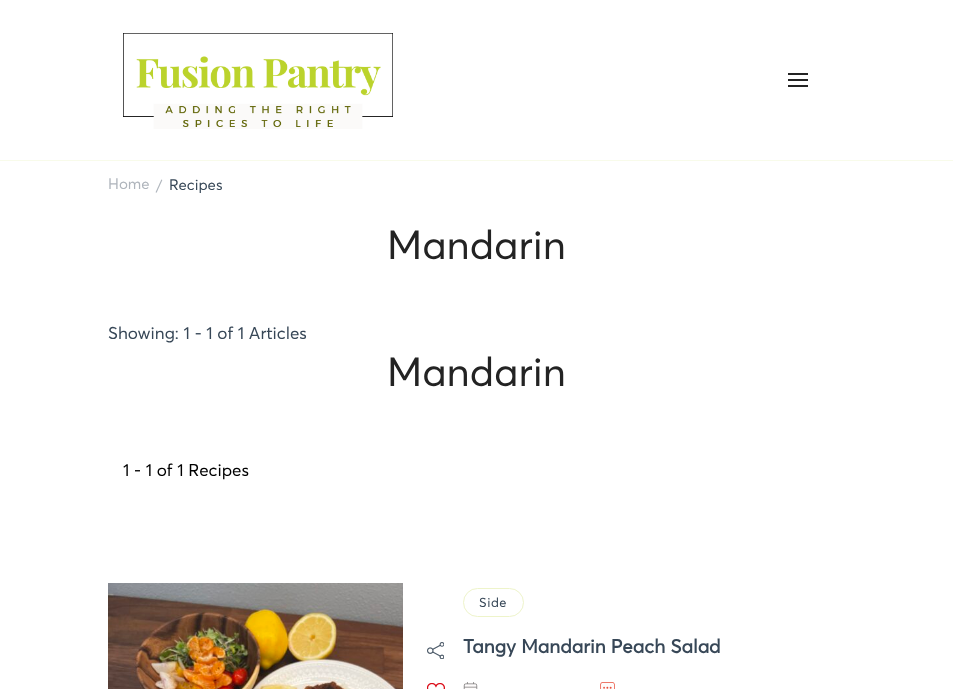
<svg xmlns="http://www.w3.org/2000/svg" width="953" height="689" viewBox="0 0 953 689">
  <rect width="100%" height="100%" fill="rgb(255,255,255)"/>
  <rect x="0" y="160" width="953" height="1" fill="rgb(248,251,234)"/>
  <image x="123" y="33" width="270" height="96" href="pic1.png"/>
  <rect x="788" y="73" width="20" height="2" fill="rgb(35,35,35)"/>
  <rect x="788" y="79" width="20" height="2" fill="rgb(35,35,35)"/>
  <rect x="788" y="85" width="20" height="2" fill="rgb(35,35,35)"/>
  <g font-family="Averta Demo" font-size="15" fill="rgb(175,181,188)">
    <text x="108" y="189">Home</text>
    <text x="156" y="191">/</text>
  </g>
  <text x="169" y="190" font-family="Averta Demo" font-size="15" fill="rgb(55,71,87)">Recipes</text>
  <text x="387" y="259" font-family="Averta Demo" font-size="40" fill="rgb(35,35,35)">Mandarin</text>
  <text x="108" y="339" font-family="Averta Demo" font-size="17" fill="rgb(55,71,87)">Showing: 1 - 1 of 1 Articles</text>
  <text x="387" y="386" font-family="Averta Demo" font-size="40" fill="rgb(35,35,35)">Mandarin</text>
  <text x="123" y="476" font-family="Averta Demo" font-size="17" fill="rgb(0,0,0)">1 - 1 of 1 Recipes</text>
  <image x="108" y="583" width="295" height="106" href="pic2.png"/>
  <rect x="463.5" y="588.5" width="60" height="28" rx="14" fill="none" stroke="rgb(238,244,202)"/>
  <text x="479" y="607" font-family="Averta Demo" font-size="13" letter-spacing="0.5" fill="rgb(55,71,87)">Side</text>
  <image x="427" y="642" width="17" height="17" href="pic3.png"/>
  <image x="427" y="683" width="18" height="6" href="pic4.png"/>
  <text x="463" y="653" font-family="Averta Demo" font-size="18.9" font-weight="bold" fill="rgb(55,71,87)">Tangy Mandarin Peach Salad</text>
  <image x="463" y="682" width="15" height="7" href="pic5.png"/>
  <image x="600" y="682" width="15" height="7" href="pic6.png"/>
</svg>
